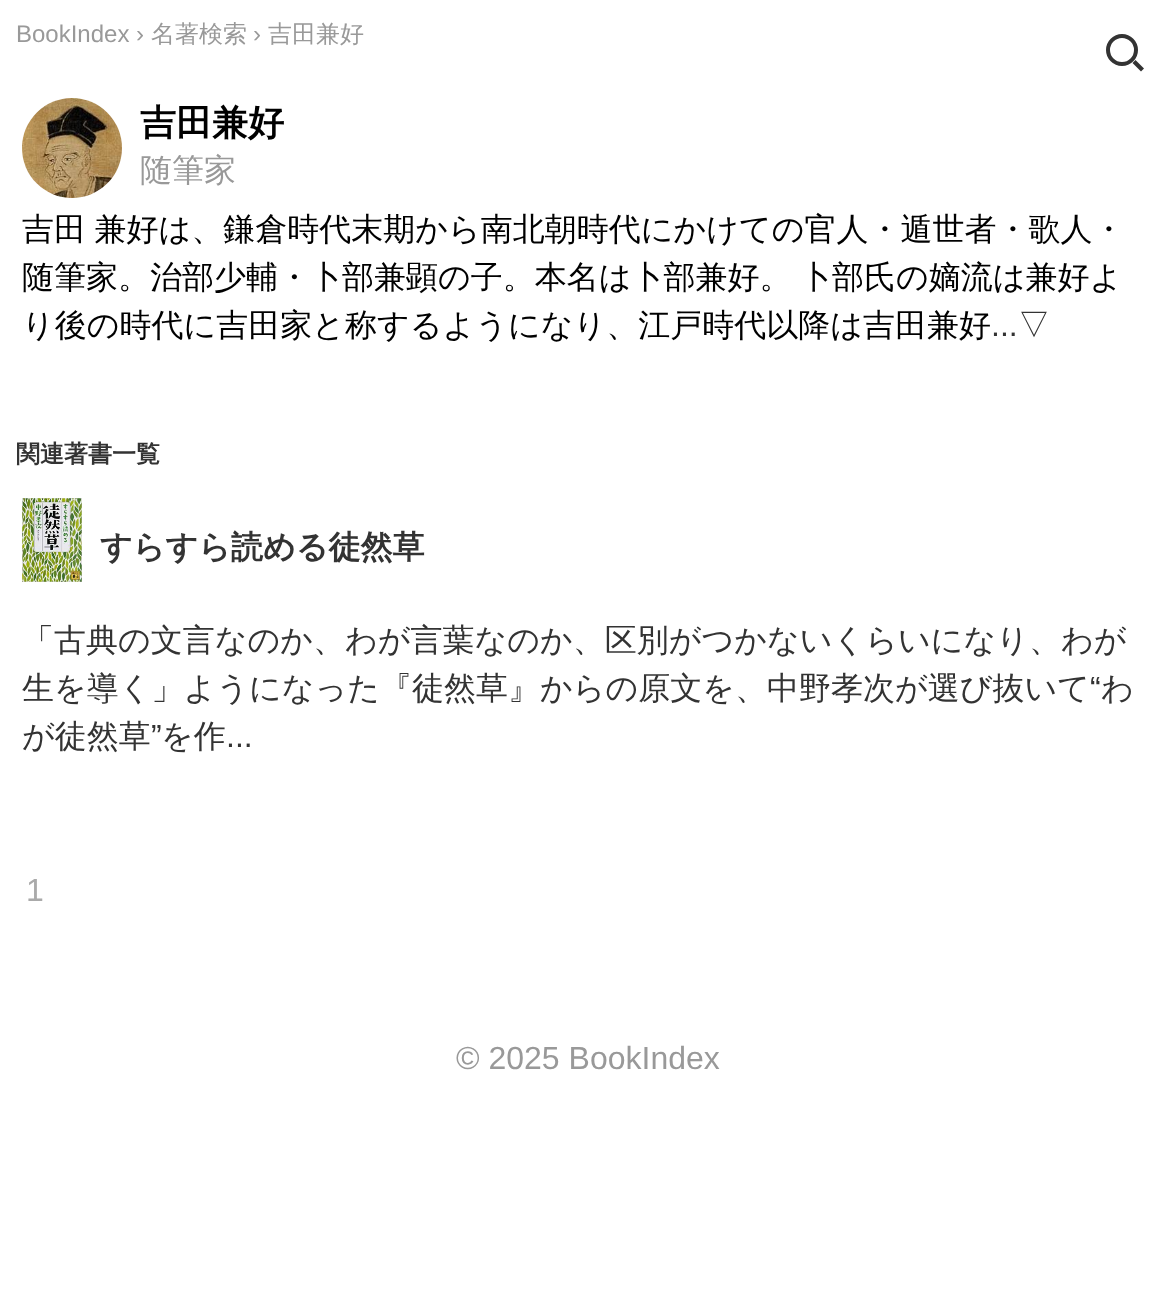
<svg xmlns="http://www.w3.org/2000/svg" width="1175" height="1295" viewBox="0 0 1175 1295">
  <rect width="100%" height="100%" fill="rgb(255,255,255)"/>
  <text x="16" y="42" font-family="Liberation Sans" font-size="24" fill="rgb(153,153,153)">BookIndex ›</text>
  <text x="151" y="42" font-family="WenQuanYi Zen Hei" font-size="24" font-weight="500" fill="rgb(153,153,153)">名著検索</text>
  <text x="253" y="42" font-family="Liberation Sans" font-size="24" fill="rgb(153,153,153)">›</text>
  <text x="268" y="42" font-family="WenQuanYi Zen Hei" font-size="24" font-weight="500" fill="rgb(153,153,153)">吉田兼好</text>
  <image x="22" y="98" width="100" height="100" href="pic1.png"/>
  <text x="140" y="135" font-family="WenQuanYi Zen Hei" font-size="36" font-weight="bold" fill="rgb(0,0,0)">吉田兼好</text>
  <text x="140" y="181" font-family="WenQuanYi Zen Hei" font-size="32" font-weight="500" fill="rgb(153,153,153)">随筆家</text>
  <g font-family="WenQuanYi Zen Hei" font-size="32" font-weight="500" fill="rgb(0,0,0)">
    <text>
      <tspan x="22" y="240" word-spacing="-1">吉田 兼好は、鎌倉時代末期から南北朝時代にかけての官人・遁世者・歌人・</tspan>
      <tspan x="22" y="288" word-spacing="-1">随筆家。治部少輔・卜部兼顕の子。本名は卜部兼好。 卜部氏の嫡流は兼好よ</tspan>
      <tspan x="22" y="336">り後の時代に吉田家と称するようになり、江戸時代以降は吉田兼好</tspan>
    </text>
  </g>
  <text x="991" y="336" font-family="Liberation Sans" font-size="32" fill="rgb(51,51,51)">...</text>
  <text x="1018" y="336" font-family="WenQuanYi Zen Hei" font-size="32" font-weight="500" fill="rgb(51,51,51)">▽</text>
  <text x="16" y="462" font-family="WenQuanYi Zen Hei" font-size="24" font-weight="bold" fill="rgb(51,51,51)">関連著書一覧</text>
  <image x="22" y="498" width="60" height="84" href="pic2.png"/>
  <text x="100" y="558" font-family="WenQuanYi Zen Hei" font-size="32" font-weight="bold" fill="rgb(51,51,51)">すらすら読める徒然草</text>
  <g font-family="WenQuanYi Zen Hei" font-size="32" font-weight="500" fill="rgb(51,51,51)">
    <text>
      <tspan x="22" y="651">「古典の文言なのか、わが言葉なのか、区別がつかないくらいになり、わが</tspan>
      <tspan x="22" y="699">生を導く」ようになった『徒然草』からの原文を、中野孝次が選び抜いて</tspan>
    </text>
  </g>
  <text x="1090" y="699" font-family="Liberation Sans" font-size="32" fill="rgb(51,51,51)">“</text>
  <g font-family="WenQuanYi Zen Hei" font-size="32" font-weight="500" fill="rgb(51,51,51)">
    <text x="1101" y="699">わ</text>
    <text x="22" y="747">が徒然草</text>
  </g>
  <text x="151" y="747" font-family="Liberation Sans" font-size="32" fill="rgb(51,51,51)">”</text>
  <text x="161" y="747" font-family="WenQuanYi Zen Hei" font-size="32" font-weight="500" fill="rgb(51,51,51)">を作</text>
  <text x="226" y="747" font-family="Liberation Sans" font-size="32" fill="rgb(51,51,51)">...</text>
  <text x="26" y="901" font-family="Liberation Sans" font-size="32" fill="rgb(170,170,170)">1</text>
  <circle cx="1122" cy="50" r="14" fill="none" stroke="rgb(51,51,51)" stroke-width="4"/>
  <path d="M1135.5 60L1144 68.5L1141 71.5L1132.5 63Z" fill="rgb(51,51,51)"/>
  <text x="456" y="1069" font-family="Liberation Sans" font-size="32" fill="rgb(153,153,153)">© 2025 BookIndex</text>
</svg>
